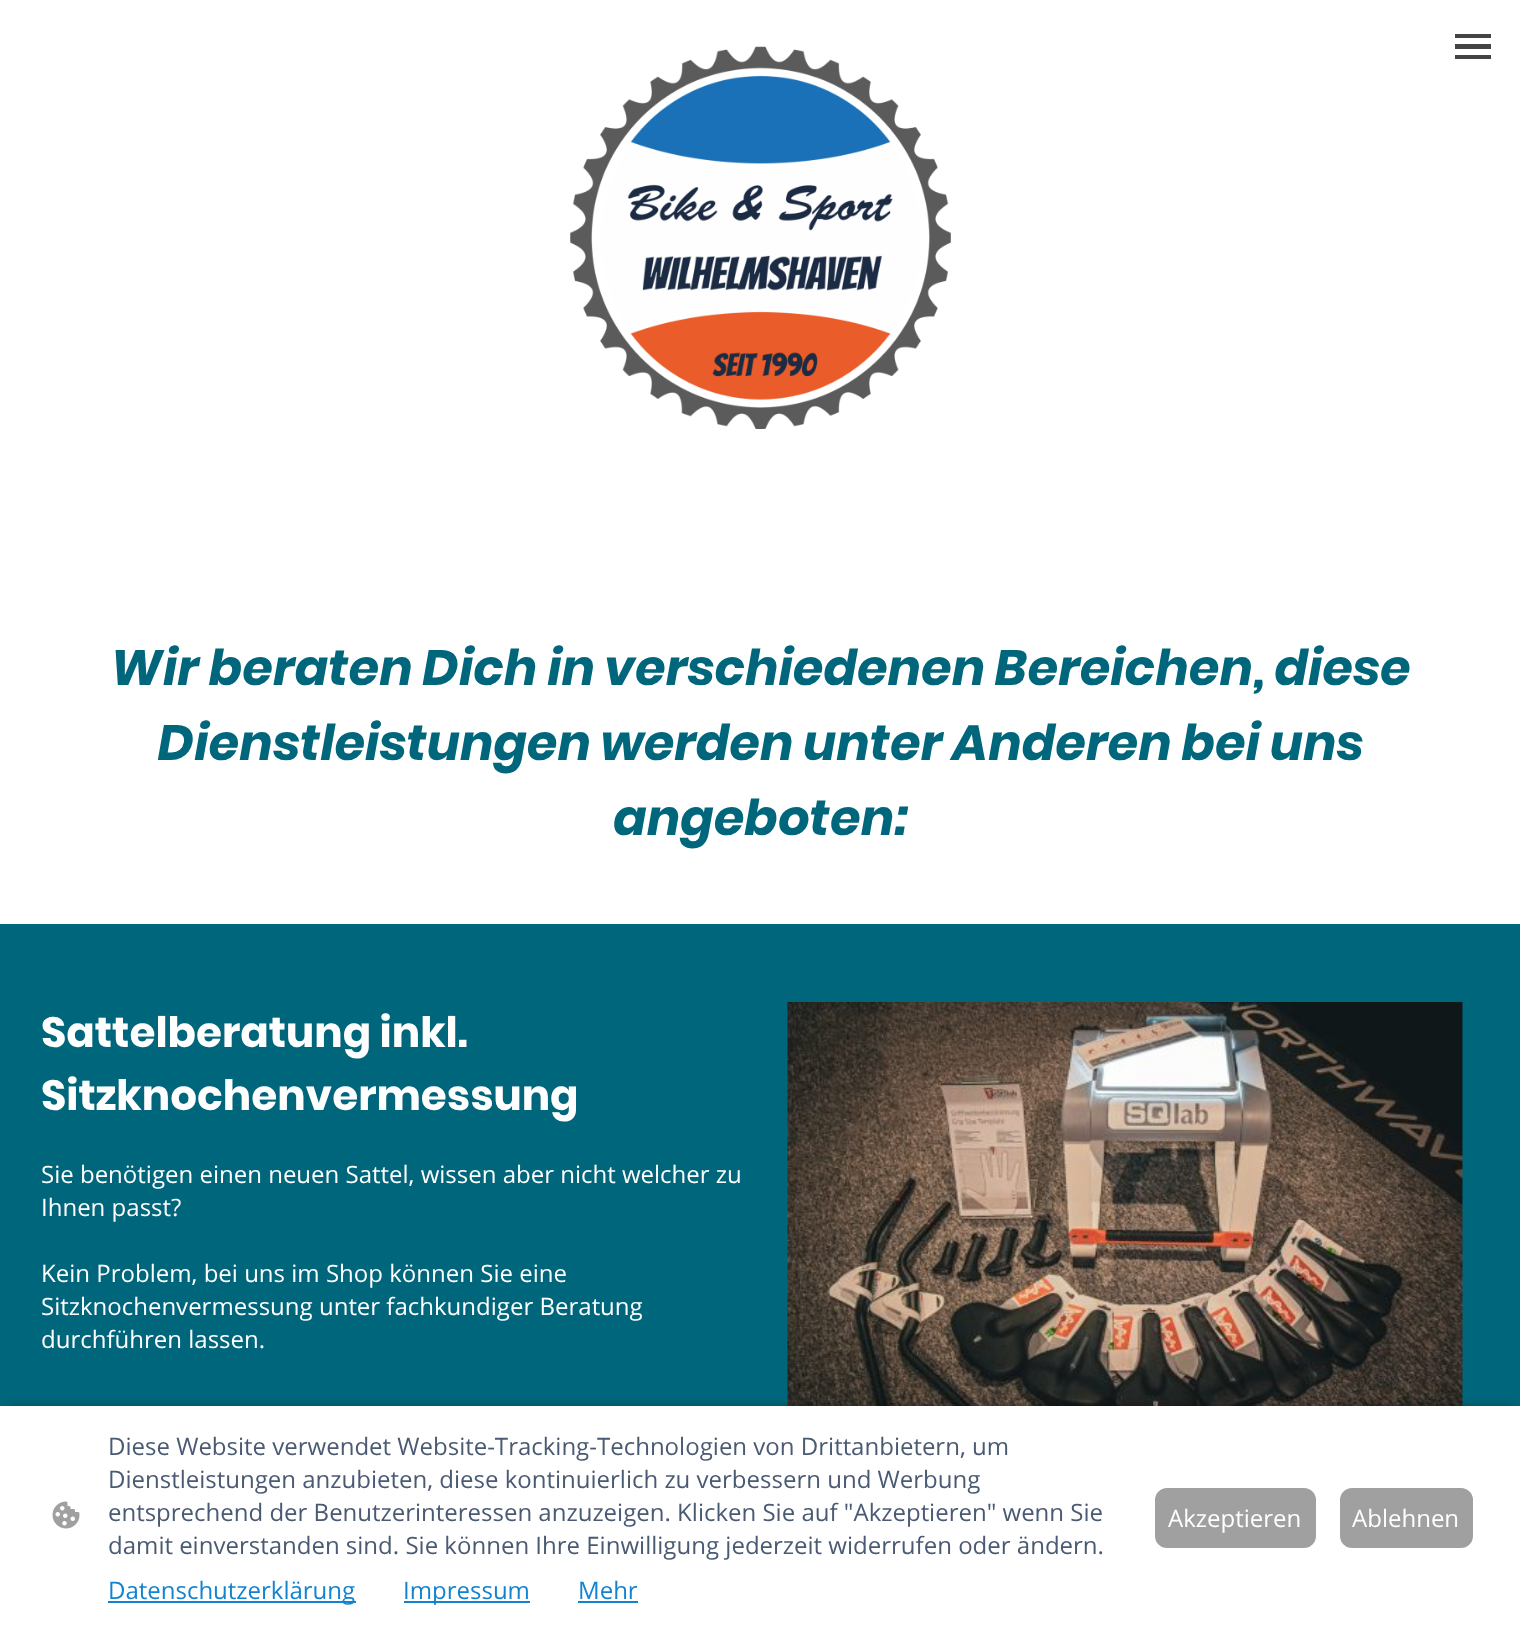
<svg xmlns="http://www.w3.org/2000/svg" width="1520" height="1630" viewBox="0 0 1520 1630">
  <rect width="100%" height="100%" fill="rgb(255,255,255)"/>
  <image x="570" y="46" width="381" height="383" href="pic1.png"/>
  <rect x="1455" y="34" width="36" height="4" fill="rgb(68,68,68)"/>
  <rect x="1455" y="44" width="36" height="5" fill="rgb(68,68,68)"/>
  <rect x="1455" y="55" width="36" height="4" fill="rgb(68,68,68)"/>
  <g font-family="Poppins" font-size="49.5" font-weight="bold" font-style="italic" fill="rgb(0,102,123)">
    <text x="111" y="685">Wir beraten Dich in verschiedenen Bereichen, diese</text>
    <text x="158" y="760">Dienstleistungen werden unter Anderen bei uns</text>
    <text x="613" y="835">angeboten:</text>
  </g>
  <rect x="0" y="924" width="1520" height="482" fill="rgb(0,102,123)"/>
  <g font-family="Poppins" font-size="42" font-weight="bold" fill="rgb(255,255,255)">
    <text>
      <tspan x="41" y="1047">Sattelberatung inkl.</tspan>
      <tspan x="41" y="1110">Sitzknochenvermessung</tspan>
    </text>
  </g>
  <image x="787" y="1002" width="676" height="404" href="pic2.png"/>
  <g font-family="Open Sans" font-size="24" fill="rgb(255,255,255)">
    <text>
      <tspan x="41" y="1183">Sie benötigen einen neuen Sattel, wissen aber nicht welcher zu</tspan>
      <tspan x="41" y="1216">Ihnen passt?</tspan>
    </text>
    <text>
      <tspan x="41" y="1282">Kein Problem, bei uns im Shop können Sie eine</tspan>
      <tspan x="41" y="1315">Sitzknochenvermessung unter fachkundiger Beratung</tspan>
      <tspan x="41" y="1348">durchführen lassen.</tspan>
    </text>
  </g>
  <rect x="9" y="1410" width="1503" height="207" fill="rgba(0,0,0,0.63)" filter="blur(6px)"/>
  <rect x="0" y="1406" width="1520" height="224" fill="rgb(255,255,255)"/>
  <image x="52" y="1501" width="28" height="28" href="pic3.png"/>
  <g font-family="Open Sans" font-size="24" fill="rgb(74,90,115)">
    <text>
      <tspan x="108" y="1455">Diese Website verwendet Website-Tracking-Technologien von Drittanbietern, um</tspan>
      <tspan x="108" y="1488">Dienstleistungen anzubieten, diese kontinuierlich zu verbessern und Werbung</tspan>
      <tspan x="108" y="1521">entsprechend der Benutzerinteressen anzuzeigen. Klicken Sie auf "Akzeptieren" wenn Sie</tspan>
      <tspan x="108" y="1554">damit einverstanden sind. Sie können Ihre Einwilligung jederzeit widerrufen oder ändern.</tspan>
    </text>
  </g>
  <rect x="108" y="1601" width="248" height="2" fill="rgb(17,131,209)"/>
  <text x="108" y="1599" font-family="Open Sans" font-size="24" fill="rgb(17,131,209)">Datenschutzerklärung</text>
  <rect x="404" y="1601" width="126" height="2" fill="rgb(17,131,209)"/>
  <g font-family="Open Sans" font-size="24" fill="rgb(17,131,209)">
    <text x="403" y="1599">Impressum</text>
    <text x="578" y="1599">Mehr</text>
  </g>
  <rect x="578" y="1601" width="60" height="2" fill="rgb(17,131,209)"/>
  <rect x="1156" y="1489" width="159" height="58" rx="11" fill="rgb(160,160,160)" stroke="rgb(160,160,160)" stroke-width="2"/>
  <text x="1168" y="1527" font-family="Open Sans" font-size="24" fill="rgb(255,255,255)">Akzeptieren</text>
  <rect x="1341" y="1489" width="131" height="58" rx="11" fill="rgb(160,160,160)" stroke="rgb(160,160,160)" stroke-width="2"/>
  <text x="1352" y="1527" font-family="Open Sans" font-size="24" fill="rgb(255,255,255)">Ablehnen</text>
</svg>
